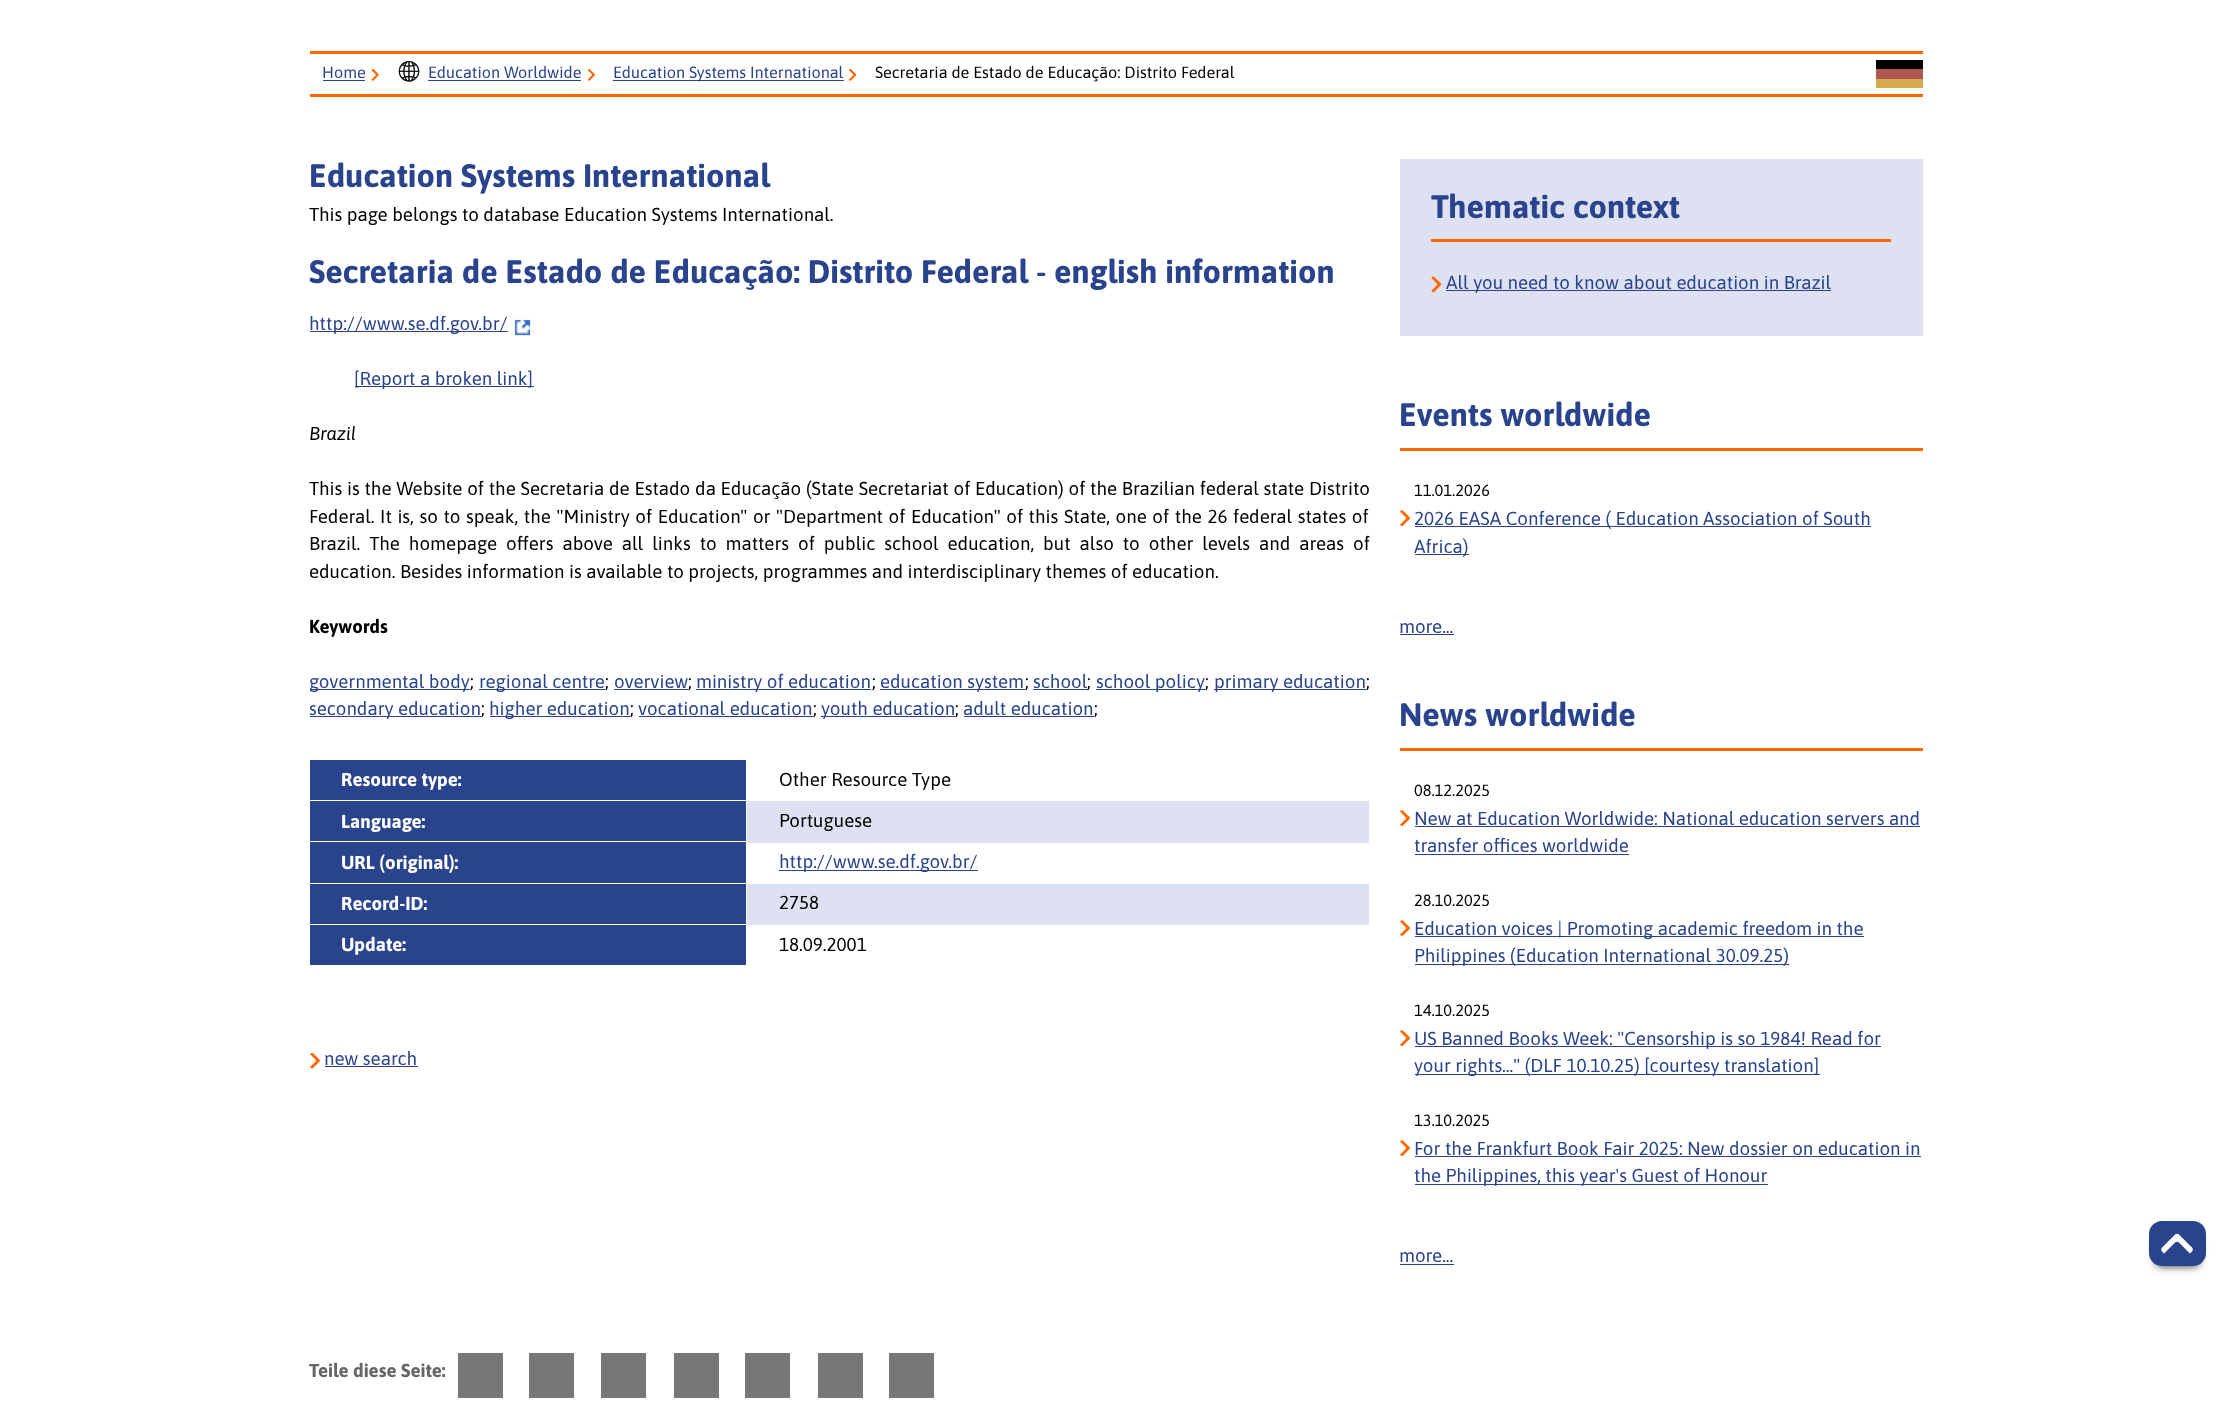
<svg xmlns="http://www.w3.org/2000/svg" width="2231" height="1407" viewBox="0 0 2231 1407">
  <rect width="100%" height="100%" fill="rgb(255,255,255)"/>
  <rect x="310" y="51" width="1613" height="3" fill="rgb(255,103,0)"/>
  <rect x="310" y="94" width="1613" height="3" fill="rgb(255,103,0)"/>
  <text x="322" y="78" font-family="Asap" font-size="16.25" fill="rgb(41,67,140)">Home</text>
  <rect x="323" y="80" width="42" height="1" fill="rgb(41,67,140)"/>
  <image x="371" y="69" width="8" height="12" href="pic1.png"/>
  <image x="398" y="61" width="22" height="21" href="pic2.png"/>
  <text x="428" y="78" font-family="Asap" font-size="16.25" fill="rgb(41,67,140)">Education Worldwide</text>
  <rect x="428" y="80" width="153" height="1" fill="rgb(41,67,140)"/>
  <image x="588" y="69" width="7" height="12" href="pic3.png"/>
  <rect x="613" y="80" width="231" height="1" fill="rgb(41,67,140)"/>
  <text x="613" y="78" font-family="Asap" font-size="16.25" fill="rgb(41,67,140)">Education Systems International</text>
  <image x="849" y="69" width="7" height="12" href="pic4.png"/>
  <text x="875" y="78" font-family="Asap" font-size="16.25" fill="rgb(0,0,0)">Secretaria de Estado de Educação: Distrito Federal</text>
  <rect x="1876" y="69" width="47" height="10" fill="rgb(176,88,82)"/>
  <rect x="1876" y="60" width="47" height="9" fill="rgb(0,0,0)"/>
  <rect x="1876" y="79" width="47" height="9" fill="rgb(216,171,80)"/>
  <text x="309" y="187" font-family="Asap" font-size="32.5" font-weight="bold" fill="rgb(41,67,140)">Education Systems International</text>
  <text x="309" y="221" font-family="Asap" font-size="18.75" fill="rgb(0,0,0)">This page belongs to database Education Systems International.</text>
  <text x="309" y="283" font-family="Asap" font-size="32.5" font-weight="bold" fill="rgb(41,67,140)">Secretaria de Estado de Educação: Distrito Federal - english information</text>
  <rect x="310" y="331" width="198" height="1" fill="rgb(41,67,140)"/>
  <text x="309" y="330" font-family="Asap" font-size="18.75" fill="rgb(41,67,140)">http://www.se.df.gov.br/</text>
  <image x="514" y="319" width="17" height="17" href="pic5.png"/>
  <rect x="355" y="386" width="179" height="1" fill="rgb(41,67,140)"/>
  <text x="354" y="385" font-family="Asap" font-size="18.75" fill="rgb(41,67,140)">[Report a broken link]</text>
  <text x="309" y="440" font-family="Asap" font-size="18.75" font-style="italic" fill="rgb(0,0,0)">Brazil</text>
  <g font-family="Asap" font-size="18.75" fill="rgb(0,0,0)">
    <text>
      <tspan x="309" y="495" word-spacing="0.25">This is the Website of the Secretaria de Estado da Educação (State Secretariat of Education) of the Brazilian federal state Distrito</tspan>
      <tspan x="309" y="523" word-spacing="1.1">Federal. It is, so to speak, the "Ministry of Education" or "Department of Education" of this State, one of the 26 federal states of</tspan>
      <tspan x="309" y="550" word-spacing="4.5">Brazil. The homepage offers above all links to matters of public school education, but also to other levels and areas of</tspan>
      <tspan x="309" y="578">education. Besides information is available to projects, programmes and interdisciplinary themes of education.</tspan>
    </text>
  </g>
  <text x="309" y="633" font-family="Asap" font-size="18.75" font-weight="bold" fill="rgb(0,0,0)">Keywords</text>
  <rect x="310" y="689" width="160" height="1" fill="rgb(41,67,140)"/>
  <text x="309" y="688" font-family="Asap" font-size="18.75" fill="rgb(41,67,140)">governmental body</text>
  <text x="470" y="688" font-family="Asap" font-size="18.75" fill="rgb(0,0,0)">;</text>
  <rect x="479" y="689" width="126" height="1" fill="rgb(41,67,140)"/>
  <text x="479" y="688" font-family="Asap" font-size="18.75" fill="rgb(41,67,140)">regional centre</text>
  <text x="605" y="688" font-family="Asap" font-size="18.75" fill="rgb(0,0,0)">;</text>
  <text x="614" y="688" font-family="Asap" font-size="18.75" fill="rgb(41,67,140)">overview</text>
  <rect x="614" y="689" width="74" height="1" fill="rgb(41,67,140)"/>
  <text x="688" y="688" font-family="Asap" font-size="18.75" fill="rgb(0,0,0)">;</text>
  <rect x="696" y="689" width="175" height="1" fill="rgb(41,67,140)"/>
  <text x="696" y="688" font-family="Asap" font-size="18.75" fill="rgb(41,67,140)">ministry of education</text>
  <text x="872" y="688" font-family="Asap" font-size="18.75" fill="rgb(0,0,0)">;</text>
  <rect x="880" y="689" width="145" height="1" fill="rgb(41,67,140)"/>
  <text x="880" y="688" font-family="Asap" font-size="18.75" fill="rgb(41,67,140)">education system</text>
  <text x="1025" y="688" font-family="Asap" font-size="18.75" fill="rgb(0,0,0)">;</text>
  <text x="1033" y="688" font-family="Asap" font-size="18.75" fill="rgb(41,67,140)">school</text>
  <rect x="1033" y="689" width="55" height="1" fill="rgb(41,67,140)"/>
  <text x="1087" y="688" font-family="Asap" font-size="18.75" fill="rgb(0,0,0)">;</text>
  <rect x="1096" y="689" width="109" height="1" fill="rgb(41,67,140)"/>
  <text x="1096" y="688" font-family="Asap" font-size="18.75" fill="rgb(41,67,140)">school policy</text>
  <text x="1205" y="688" font-family="Asap" font-size="18.75" fill="rgb(0,0,0)">;</text>
  <rect x="1214" y="689" width="152" height="1" fill="rgb(41,67,140)"/>
  <text x="1214" y="688" font-family="Asap" font-size="18.75" fill="rgb(41,67,140)">primary education</text>
  <text x="1366" y="688" font-family="Asap" font-size="18.75" fill="rgb(0,0,0)">;</text>
  <rect x="310" y="716" width="171" height="1" fill="rgb(41,67,140)"/>
  <text x="309" y="715" font-family="Asap" font-size="18.75" fill="rgb(41,67,140)">secondary education</text>
  <text x="481" y="715" font-family="Asap" font-size="18.75" fill="rgb(0,0,0)">;</text>
  <rect x="490" y="716" width="140" height="1" fill="rgb(41,67,140)"/>
  <text x="489" y="715" font-family="Asap" font-size="18.75" fill="rgb(41,67,140)">higher education</text>
  <text x="630" y="715" font-family="Asap" font-size="18.75" fill="rgb(0,0,0)">;</text>
  <text x="638" y="715" font-family="Asap" font-size="18.75" fill="rgb(41,67,140)">vocational education</text>
  <rect x="639" y="716" width="174" height="1" fill="rgb(41,67,140)"/>
  <text x="813" y="715" font-family="Asap" font-size="18.75" fill="rgb(0,0,0)">;</text>
  <rect x="821" y="716" width="134" height="1" fill="rgb(41,67,140)"/>
  <text x="821" y="715" font-family="Asap" font-size="18.75" fill="rgb(41,67,140)">youth education</text>
  <text x="955" y="715" font-family="Asap" font-size="18.75" fill="rgb(0,0,0)">;</text>
  <text x="963" y="715" font-family="Asap" font-size="18.75" fill="rgb(41,67,140)">adult education</text>
  <rect x="964" y="716" width="130" height="1" fill="rgb(41,67,140)"/>
  <text x="1094" y="715" font-family="Asap" font-size="18.75" fill="rgb(0,0,0)">;</text>
  <rect x="310" y="760" width="436" height="40" fill="rgb(41,67,140)"/>
  <text x="341" y="786" font-family="Asap" font-size="18.75" font-weight="bold" fill="rgb(255,255,255)">Resource type:</text>
  <text x="779" y="786" font-family="Asap" font-size="18.75" fill="rgb(0,0,0)">Other Resource Type</text>
  <rect x="747" y="801" width="622" height="42" fill="rgb(221,225,242)"/>
  <rect x="310" y="801" width="436" height="82" fill="rgb(41,67,140)"/>
  <rect x="309" y="841" width="439" height="1" fill="rgb(255,255,255)"/>
  <text x="341" y="828" font-family="Asap" font-size="18.75" font-weight="bold" fill="rgb(255,255,255)">Language:</text>
  <text x="779" y="827" font-family="Asap" font-size="18.75" fill="rgb(0,0,0)">Portuguese</text>
  <text x="341" y="869" font-family="Asap" font-size="18.75" font-weight="bold" fill="rgb(255,255,255)">URL (original):</text>
  <rect x="779" y="870" width="199" height="1" fill="rgb(41,67,140)"/>
  <text x="779" y="868" font-family="Asap" font-size="18.75" fill="rgb(41,67,140)">http://www.se.df.gov.br/</text>
  <rect x="747" y="884" width="622" height="41" fill="rgb(221,225,242)"/>
  <rect x="310" y="884" width="436" height="40" fill="rgb(41,67,140)"/>
  <rect x="747" y="924" width="1" height="1" fill="rgb(255,255,255)"/>
  <text x="341" y="910" font-family="Asap" font-size="18.75" font-weight="bold" fill="rgb(255,255,255)">Record-ID:</text>
  <text x="779" y="909" font-family="Asap" font-size="18.75" fill="rgb(0,0,0)">2758</text>
  <rect x="310" y="925" width="436" height="40" fill="rgb(41,67,140)"/>
  <text x="341" y="951" font-family="Asap" font-size="18.75" font-weight="bold" fill="rgb(255,255,255)">Update:</text>
  <text x="779" y="951" font-family="Asap" font-size="18.75" fill="rgb(0,0,0)">18.09.2001</text>
  <image x="310" y="1053" width="10" height="16" href="pic6.png"/>
  <text x="324" y="1065" font-family="Asap" font-size="18.75" fill="rgb(41,67,140)">new search</text>
  <rect x="325" y="1066" width="93" height="1" fill="rgb(41,67,140)"/>
  <rect x="1400" y="159" width="523" height="177" fill="rgb(221,225,242)"/>
  <rect x="1431" y="239" width="460" height="3" fill="rgb(255,103,0)"/>
  <text x="1431" y="218" font-family="Asap" font-size="32.5" font-weight="bold" fill="rgb(41,67,140)">Thematic context</text>
  <image x="1431" y="276" width="10" height="17" href="pic7.png"/>
  <rect x="1446" y="290" width="385" height="1" fill="rgb(41,67,140)"/>
  <text x="1446" y="289" font-family="Asap" font-size="18.75" fill="rgb(41,67,140)">All you need to know about education in Brazil</text>
  <rect x="1400" y="448" width="523" height="3" fill="rgb(255,103,0)"/>
  <text x="1399" y="426" font-family="Asap" font-size="32.5" font-weight="bold" fill="rgb(41,67,140)">Events worldwide</text>
  <image x="1400" y="510" width="10" height="16" href="pic8.png"/>
  <text x="1414" y="496" font-family="Asap" font-size="16.25" fill="rgb(0,0,0)">11.01.2026</text>
  <rect x="1415" y="526" width="456" height="1" fill="rgb(41,67,140)"/>
  <text x="1414" y="525" font-family="Asap" font-size="18.75" fill="rgb(41,67,140)">2026 EASA Conference ( Education Association of South</text>
  <rect x="1415" y="554" width="54" height="1" fill="rgb(41,67,140)"/>
  <g font-family="Asap" font-size="18.75" fill="rgb(41,67,140)">
    <text x="1414" y="553">Africa)</text>
    <text x="1399" y="633">more...</text>
  </g>
  <rect x="1400" y="634" width="54" height="1" fill="rgb(41,67,140)"/>
  <rect x="1400" y="748" width="523" height="3" fill="rgb(255,103,0)"/>
  <text x="1399" y="726" font-family="Asap" font-size="32.5" font-weight="bold" fill="rgb(41,67,140)">News worldwide</text>
  <image x="1400" y="810" width="10" height="16" href="pic8.png"/>
  <text x="1414" y="796" font-family="Asap" font-size="16.25" fill="rgb(0,0,0)">08.12.2025</text>
  <text x="1414" y="825" font-family="Asap" font-size="18.75" fill="rgb(41,67,140)">New at Education Worldwide: National education servers and</text>
  <rect x="1415" y="826" width="505" height="1" fill="rgb(41,67,140)"/>
  <text x="1414" y="852" font-family="Asap" font-size="18.75" fill="rgb(41,67,140)">transfer offices worldwide</text>
  <rect x="1415" y="854" width="214" height="1" fill="rgb(41,67,140)"/>
  <image x="1400" y="920" width="10" height="16" href="pic8.png"/>
  <text x="1414" y="906" font-family="Asap" font-size="16.25" fill="rgb(0,0,0)">28.10.2025</text>
  <rect x="1415" y="936" width="449" height="1" fill="rgb(41,67,140)"/>
  <text x="1414" y="935" font-family="Asap" font-size="18.75" fill="rgb(41,67,140)">Education voices | Promoting academic freedom in the</text>
  <rect x="1415" y="964" width="374" height="1" fill="rgb(41,67,140)"/>
  <text x="1414" y="962" font-family="Asap" font-size="18.75" fill="rgb(41,67,140)">Philippines (Education International 30.09.25)</text>
  <image x="1400" y="1030" width="10" height="16" href="pic8.png"/>
  <text x="1414" y="1016" font-family="Asap" font-size="16.25" fill="rgb(0,0,0)">14.10.2025</text>
  <rect x="1415" y="1046" width="466" height="1" fill="rgb(41,67,140)"/>
  <text x="1414" y="1045" font-family="Asap" font-size="18.75" fill="rgb(41,67,140)">US Banned Books Week: "Censorship is so 1984! Read for</text>
  <rect x="1415" y="1074" width="405" height="1" fill="rgb(41,67,140)"/>
  <text x="1414" y="1072" font-family="Asap" font-size="18.75" fill="rgb(41,67,140)">your rights..." (DLF 10.10.25) [courtesy translation]</text>
  <image x="1400" y="1140" width="10" height="16" href="pic8.png"/>
  <text x="1414" y="1126" font-family="Asap" font-size="16.25" fill="rgb(0,0,0)">13.10.2025</text>
  <text x="1414" y="1155" font-family="Asap" font-size="18.75" fill="rgb(41,67,140)">For the Frankfurt Book Fair 2025: New dossier on education in</text>
  <rect x="1415" y="1156" width="506" height="1" fill="rgb(41,67,140)"/>
  <rect x="1415" y="1184" width="353" height="1" fill="rgb(41,67,140)"/>
  <g font-family="Asap" font-size="18.75" fill="rgb(41,67,140)">
    <text x="1414" y="1182">the Philippines, this year's Guest of Honour</text>
    <text x="1399" y="1262">more...</text>
  </g>
  <rect x="1400" y="1264" width="54" height="1" fill="rgb(41,67,140)"/>
  <text x="309" y="1377" font-family="Asap" font-size="18.75" font-weight="bold" fill="rgb(102,102,102)">Teile diese Seite:</text>
  <rect x="458" y="1353" width="45" height="45" fill="rgb(119,119,119)"/>
  <rect x="529" y="1353" width="45" height="45" fill="rgb(119,119,119)"/>
  <rect x="601" y="1353" width="45" height="45" fill="rgb(119,119,119)"/>
  <rect x="674" y="1353" width="45" height="45" fill="rgb(119,119,119)"/>
  <rect x="745" y="1353" width="45" height="45" fill="rgb(119,119,119)"/>
  <rect x="818" y="1353" width="45" height="45" fill="rgb(119,119,119)"/>
  <rect x="889" y="1353" width="45" height="45" fill="rgb(119,119,119)"/>
  <rect x="2156" y="1236" width="43" height="30" rx="5" fill="rgb(34,34,34)" filter="blur(4px)"/>
  <rect x="2149" y="1221" width="57" height="45" rx="13" fill="rgb(41,67,140)"/>
  <image x="2161" y="1234" width="32" height="20" href="pic9.png"/>
</svg>
